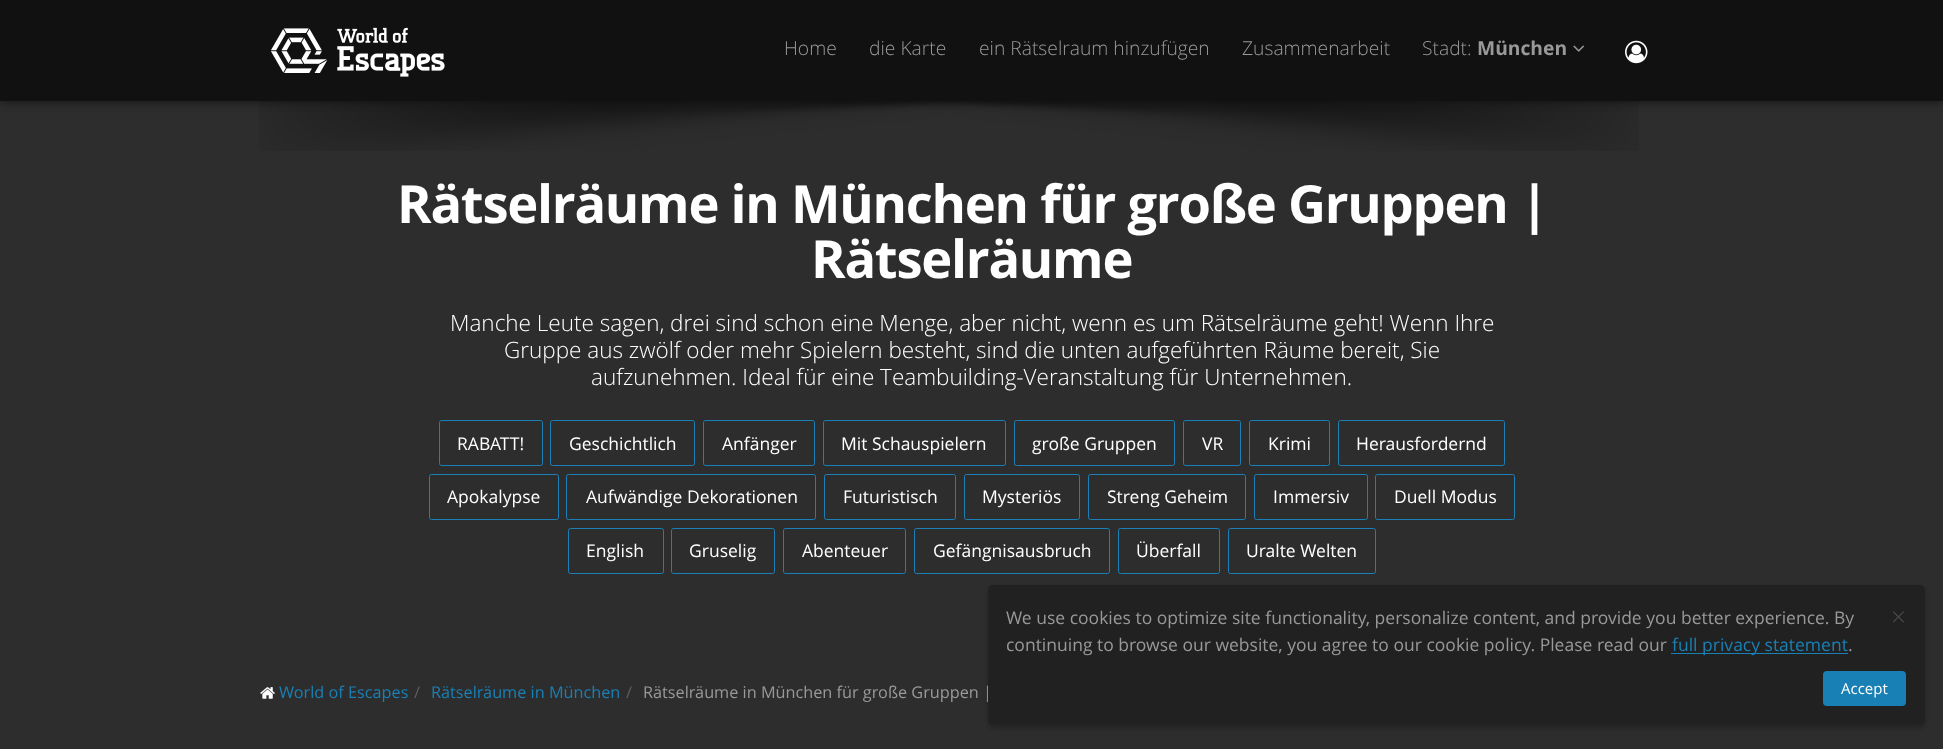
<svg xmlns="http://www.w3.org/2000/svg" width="1943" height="749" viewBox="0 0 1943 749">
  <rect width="100%" height="100%" fill="rgb(45,45,45)"/>
  <image x="259" y="101" width="1380" height="50" href="pic4.png"/>
  <rect x="0" y="0" width="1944" height="101" fill="rgb(17,17,17)" filter="blur(5px)"/>
  <rect x="0" y="0" width="1943" height="101" fill="rgb(17,17,17)"/>
  <image x="271" y="27" width="174" height="50" href="pic1.png"/>
  <g font-family="Open Sans" font-size="19.25" font-weight="300" fill="rgb(153,153,153)">
    <text x="784" y="55">Home</text>
    <text x="869" y="55">die Karte</text>
    <text x="979" y="55">ein Rätselraum hinzufügen</text>
    <text x="1242" y="55">Zusammenarbeit</text>
    <text x="1422" y="55">Stadt:</text>
  </g>
  <text x="1477" y="55" font-family="Open Sans" font-size="19.25" font-weight="bold" fill="rgb(153,153,153)">München</text>
  <image x="1573" y="45" width="11" height="7" href="pic2.png"/>
  <image x="1625" y="40" width="23" height="24" href="pic3.png"/>
  <g font-family="Open Sans" font-size="52.5" font-weight="bold" letter-spacing="-1.25" fill="rgb(255,255,255)">
    <text x="397" y="223">Rätselräume in München für große Gruppen |</text>
    <text x="811" y="278">Rätselräume</text>
  </g>
  <g font-family="Open Sans" font-size="22.5" font-weight="300" fill="rgb(255,255,255)">
    <text x="450" y="331">Manche Leute sagen, drei sind schon eine Menge, aber nicht, wenn es um Rätselräume geht! Wenn Ihre</text>
    <text x="504" y="358">Gruppe aus zwölf oder mehr Spielern besteht, sind die unten aufgeführten Räume bereit, Sie</text>
    <text x="591" y="385">aufzunehmen. Ideal für eine Teambuilding-Veranstaltung für Unternehmen.</text>
  </g>
  <rect x="439.5" y="420.5" width="103" height="45" rx="2" fill="none" stroke="rgb(25,128,184)"/>
  <text x="457" y="450" font-family="Open Sans" font-size="17.5" fill="rgb(255,255,255)">RABATT!</text>
  <rect x="550.5" y="420.5" width="144" height="45" rx="2" fill="none" stroke="rgb(25,128,184)"/>
  <text x="569" y="450" font-family="Open Sans" font-size="17.5" fill="rgb(255,255,255)">Geschichtlich</text>
  <rect x="703.5" y="420.5" width="111" height="45" rx="2" fill="none" stroke="rgb(25,128,184)"/>
  <text x="722" y="450" font-family="Open Sans" font-size="17.5" fill="rgb(255,255,255)">Anfänger</text>
  <rect x="823.5" y="420.5" width="182" height="45" rx="2" fill="none" stroke="rgb(25,128,184)"/>
  <text x="841" y="450" font-family="Open Sans" font-size="17.5" fill="rgb(255,255,255)">Mit Schauspielern</text>
  <rect x="1014.5" y="420.5" width="160" height="45" rx="2" fill="none" stroke="rgb(25,128,184)"/>
  <text x="1032" y="450" font-family="Open Sans" font-size="17.5" fill="rgb(255,255,255)">große Gruppen</text>
  <rect x="1183.5" y="420.5" width="57" height="45" rx="2" fill="none" stroke="rgb(25,128,184)"/>
  <text x="1202" y="450" font-family="Open Sans" font-size="17.5" fill="rgb(255,255,255)">VR</text>
  <rect x="1249.5" y="420.5" width="80" height="45" rx="2" fill="none" stroke="rgb(25,128,184)"/>
  <text x="1268" y="450" font-family="Open Sans" font-size="17.5" fill="rgb(255,255,255)">Krimi</text>
  <rect x="1338.5" y="420.5" width="166" height="45" rx="2" fill="none" stroke="rgb(25,128,184)"/>
  <text x="1356" y="450" font-family="Open Sans" font-size="17.5" fill="rgb(255,255,255)">Herausfordernd</text>
  <rect x="429.5" y="474.5" width="129" height="45" rx="2" fill="none" stroke="rgb(25,128,184)"/>
  <text x="447" y="503" font-family="Open Sans" font-size="17.5" fill="rgb(255,255,255)">Apokalypse</text>
  <rect x="566.5" y="474.5" width="249" height="45" rx="2" fill="none" stroke="rgb(25,128,184)"/>
  <text x="586" y="503" font-family="Open Sans" font-size="17.5" fill="rgb(255,255,255)">Aufwändige Dekorationen</text>
  <rect x="824.5" y="474.5" width="131" height="45" rx="2" fill="none" stroke="rgb(25,128,184)"/>
  <text x="843" y="503" font-family="Open Sans" font-size="17.5" fill="rgb(255,255,255)">Futuristisch</text>
  <rect x="964.5" y="474.5" width="115" height="45" rx="2" fill="none" stroke="rgb(25,128,184)"/>
  <text x="982" y="503" font-family="Open Sans" font-size="17.5" fill="rgb(255,255,255)">Mysteriös</text>
  <rect x="1088.5" y="474.5" width="157" height="45" rx="2" fill="none" stroke="rgb(25,128,184)"/>
  <text x="1107" y="503" font-family="Open Sans" font-size="17.5" fill="rgb(255,255,255)">Streng Geheim</text>
  <rect x="1254.5" y="474.5" width="113" height="45" rx="2" fill="none" stroke="rgb(25,128,184)"/>
  <text x="1273" y="503" font-family="Open Sans" font-size="17.5" fill="rgb(255,255,255)">Immersiv</text>
  <rect x="1375.5" y="474.5" width="139" height="45" rx="2" fill="none" stroke="rgb(25,128,184)"/>
  <text x="1394" y="503" font-family="Open Sans" font-size="17.5" fill="rgb(255,255,255)">Duell Modus</text>
  <rect x="568.5" y="528.5" width="95" height="45" rx="2" fill="none" stroke="rgb(25,128,184)"/>
  <text x="586" y="557" font-family="Open Sans" font-size="17.5" fill="rgb(255,255,255)">English</text>
  <rect x="671.5" y="528.5" width="103" height="45" rx="2" fill="none" stroke="rgb(25,128,184)"/>
  <text x="689" y="557" font-family="Open Sans" font-size="17.5" fill="rgb(255,255,255)">Gruselig</text>
  <rect x="783.5" y="528.5" width="122" height="45" rx="2" fill="none" stroke="rgb(25,128,184)"/>
  <text x="802" y="557" font-family="Open Sans" font-size="17.5" fill="rgb(255,255,255)">Abenteuer</text>
  <rect x="914.5" y="528.5" width="195" height="45" rx="2" fill="none" stroke="rgb(25,128,184)"/>
  <text x="933" y="557" font-family="Open Sans" font-size="17.5" fill="rgb(255,255,255)">Gefängnisausbruch</text>
  <rect x="1118.5" y="528.5" width="101" height="45" rx="2" fill="none" stroke="rgb(25,128,184)"/>
  <text x="1136" y="557" font-family="Open Sans" font-size="17.5" fill="rgb(255,255,255)">Überfall</text>
  <rect x="1228.5" y="528.5" width="147" height="45" rx="2" fill="none" stroke="rgb(25,128,184)"/>
  <text x="1246" y="557" font-family="Open Sans" font-size="17.5" fill="rgb(255,255,255)">Uralte Welten</text>
  <image x="260" y="687" width="15" height="12" href="pic5.png"/>
  <text x="279" y="698" font-family="Open Sans" font-size="16.25" fill="rgb(25,128,182)">World of Escapes</text>
  <text x="414" y="698" font-family="Open Sans" font-size="16.25" fill="rgb(94,94,94)">/</text>
  <text x="431" y="698" font-family="Open Sans" font-size="16.25" fill="rgb(25,128,182)">Rätselräume in München</text>
  <text x="626" y="698" font-family="Open Sans" font-size="16.25" fill="rgb(94,94,94)">/</text>
  <text x="643" y="698" font-family="Open Sans" font-size="16.25" fill="rgb(153,153,153)">Rätselräume in München für große Gruppen |</text>
  <rect x="988" y="588" width="937" height="140" rx="5" fill="rgba(0,0,0,0.2)" filter="blur(2px)"/>
  <rect x="988" y="585" width="937" height="140" rx="5" fill="rgb(33,33,33)"/>
  <g font-family="Open Sans" font-size="17.5" fill="rgb(153,153,153)">
    <text>
      <tspan x="1006" y="624">We use cookies to optimize site functionality, personalize content, and provide you better experience. By</tspan>
      <tspan x="1006" y="651">continuing to browse our website, you agree to our cookie policy. Please read our</tspan>
    </text>
  </g>
  <rect x="1671" y="653" width="177" height="1" fill="rgb(25,128,182)"/>
  <text x="1672" y="651" font-family="Open Sans" font-size="17.5" fill="rgb(25,128,182)">full privacy statement</text>
  <text x="1848" y="651" font-family="Open Sans" font-size="17.5" fill="rgb(153,153,153)">.</text>
  <text x="1891" y="626" font-family="Open Sans" font-size="26" font-weight="300" fill="rgb(77,77,77)">×</text>
  <rect x="1823" y="671" width="83" height="35" rx="4" fill="rgb(25,128,182)"/>
  <text x="1841" y="694" font-family="Open Sans" font-size="15" fill="rgb(255,255,255)">Accept</text>
</svg>
